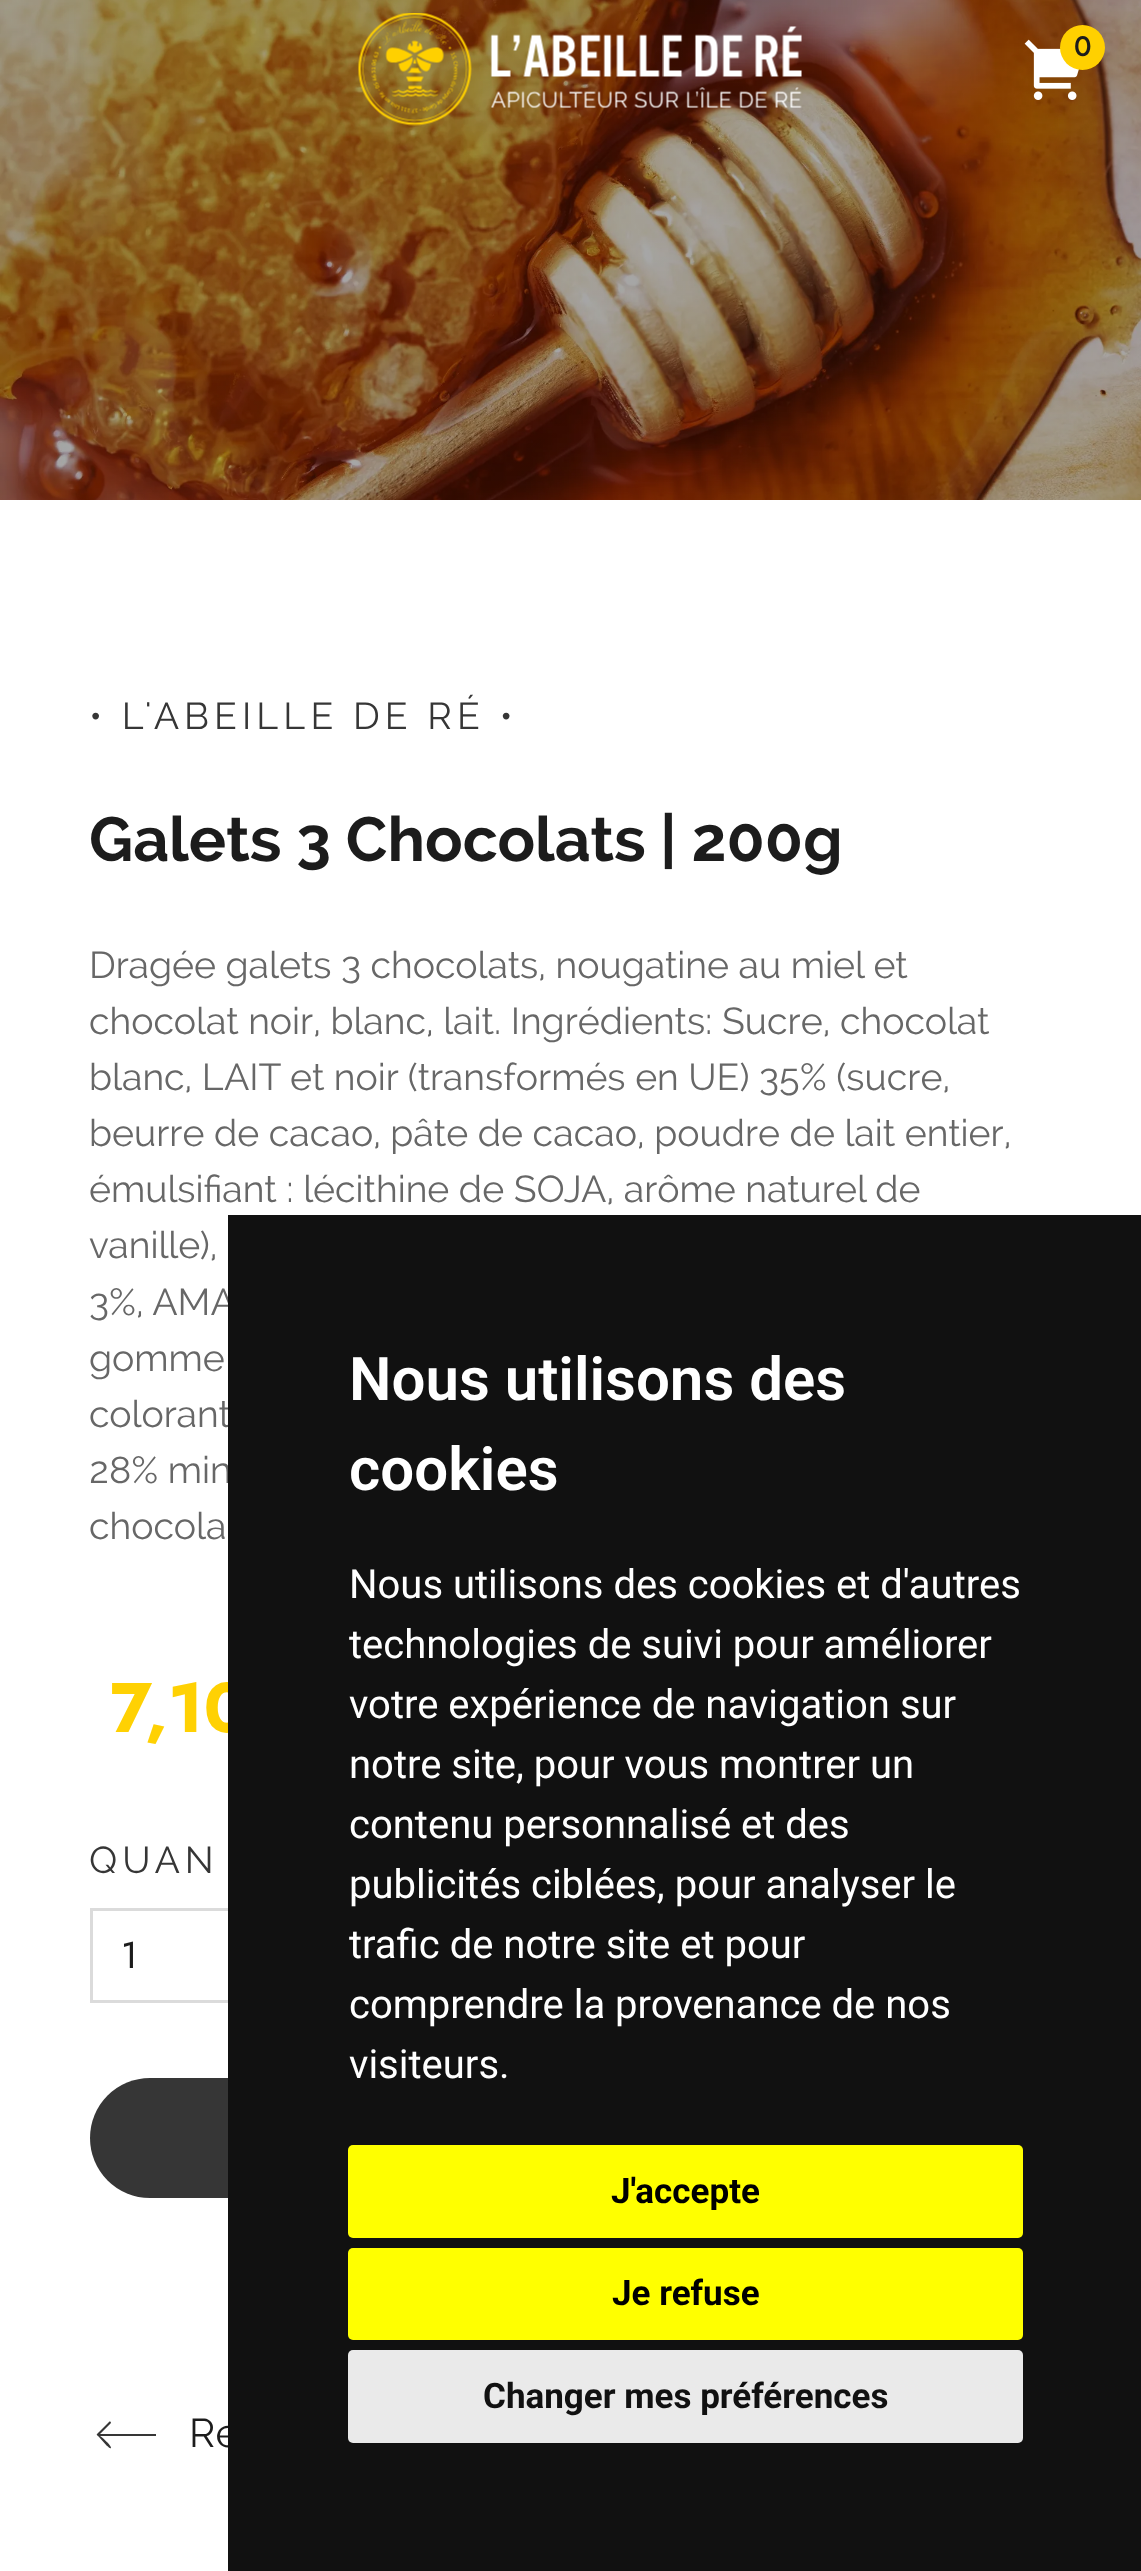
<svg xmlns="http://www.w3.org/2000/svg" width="1141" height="2571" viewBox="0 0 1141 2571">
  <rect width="100%" height="100%" fill="rgb(255,255,255)"/>
  <image x="0" y="0" width="1141" height="500" href="pic1.png"/>
  <image x="358" y="13" width="444" height="113" href="pic2.png"/>
  <image x="1024" y="39" width="55" height="61" href="pic3.png"/>
  <circle cx="1082.5" cy="47.5" r="22.5" fill="rgb(255,208,0)"/>
  <text x="1074" y="56" font-family="Jost" font-size="28" font-weight="500" fill="rgb(28,28,28)">0</text>
  <text x="89" y="729" font-family="Raleway" font-size="37.4" letter-spacing="5" fill="rgb(54,54,54)">• L'ABEILLE DE RÉ •</text>
  <text x="89" y="861" font-family="Raleway" font-size="62.25" font-weight="bold" fill="rgb(28,28,28)">Galets 3 Chocolats | 200g</text>
  <g font-family="Raleway" font-size="37.4" fill="rgb(103,103,103)">
    <text>
      <tspan x="89" y="978">Dragée galets 3 chocolats, nougatine au miel et</tspan>
      <tspan x="89" y="1034">chocolat noir, blanc, lait. Ingrédients: Sucre, chocolat</tspan>
      <tspan x="89" y="1090">blanc, LAIT et noir (transformés en UE) 35% (sucre,</tspan>
      <tspan x="89" y="1146">beurre de cacao, pâte de cacao, poudre de lait entier,</tspan>
      <tspan x="89" y="1202">émulsifiant : lécithine de SOJA, arôme naturel de</tspan>
      <tspan x="89" y="1258">vanille),</tspan>
      <tspan x="89" y="1315">3%, AMA</tspan>
      <tspan x="89" y="1371">gomme</tspan>
      <tspan x="89" y="1427">colorant</tspan>
      <tspan x="89" y="1483">28% min</tspan>
      <tspan x="89" y="1539">chocola</tspan>
    </text>
  </g>
  <text x="110" y="1732" font-family="Jost" font-size="70" font-weight="bold" fill="rgb(255,209,3)">7,10</text>
  <text x="89" y="1873" font-family="Raleway" font-size="37.4" letter-spacing="5" fill="rgb(54,54,54)">QUAN</text>
  <rect x="91.5" y="1909.5" width="960" height="92" fill="none" stroke="rgb(219,219,219)" stroke-width="3"/>
  <text x="121" y="1968" font-family="Jost" font-size="37.4" fill="rgb(28,28,28)">1</text>
  <rect x="90" y="2078" width="963" height="120" rx="60" fill="rgb(54,54,54)"/>
  <path d="M109 2422L99 2432C96 2435 96 2434 99 2437L107 2446C108 2446 109 2449 111 2448C112 2446 102 2437 100 2436H156V2435C156 2435 156 2434 156 2434H100L111 2423C111 2422 110 2421 109 2422Z" fill="rgb(54,54,54)"/>
  <text x="189" y="2447" font-family="Raleway" font-size="40" fill="rgb(28,28,28)">Re</text>
  <rect x="228" y="1215" width="913" height="1356" fill="rgb(17,17,17)"/>
  <g font-family="Roboto" font-size="60" font-weight="600" fill="rgb(255,255,255)">
    <text>
      <tspan x="349" y="1400">Nous utilisons des</tspan>
      <tspan x="349" y="1490">cookies</tspan>
    </text>
  </g>
  <g font-family="Roboto" font-size="40" fill="rgb(255,255,255)">
    <text>
      <tspan x="349" y="1598">Nous utilisons des cookies et d'autres</tspan>
      <tspan x="349" y="1658">technologies de suivi pour améliorer</tspan>
      <tspan x="349" y="1718">votre expérience de navigation sur</tspan>
      <tspan x="349" y="1778">notre site, pour vous montrer un</tspan>
      <tspan x="349" y="1838">contenu personnalisé et des</tspan>
      <tspan x="349" y="1898">publicités ciblées, pour analyser le</tspan>
      <tspan x="349" y="1958">trafic de notre site et pour</tspan>
      <tspan x="349" y="2018">comprendre la provenance de nos</tspan>
      <tspan x="349" y="2078">visiteurs.</tspan>
    </text>
  </g>
  <rect x="348" y="2145" width="675" height="93" rx="5" fill="rgb(255,255,0)"/>
  <text x="611" y="2203" font-family="Roboto" font-size="35" font-weight="bold" fill="rgb(0,0,0)">J'accepte</text>
  <rect x="348" y="2248" width="675" height="92" rx="5" fill="rgb(255,255,0)"/>
  <text x="612" y="2305" font-family="Roboto" font-size="35" font-weight="bold" fill="rgb(0,0,0)">Je refuse</text>
  <rect x="348" y="2350" width="675" height="93" rx="5" fill="rgb(234,234,234)"/>
  <text x="483" y="2408" font-family="Roboto" font-size="35" font-weight="bold" fill="rgb(17,17,17)">Changer mes préférences</text>
</svg>
